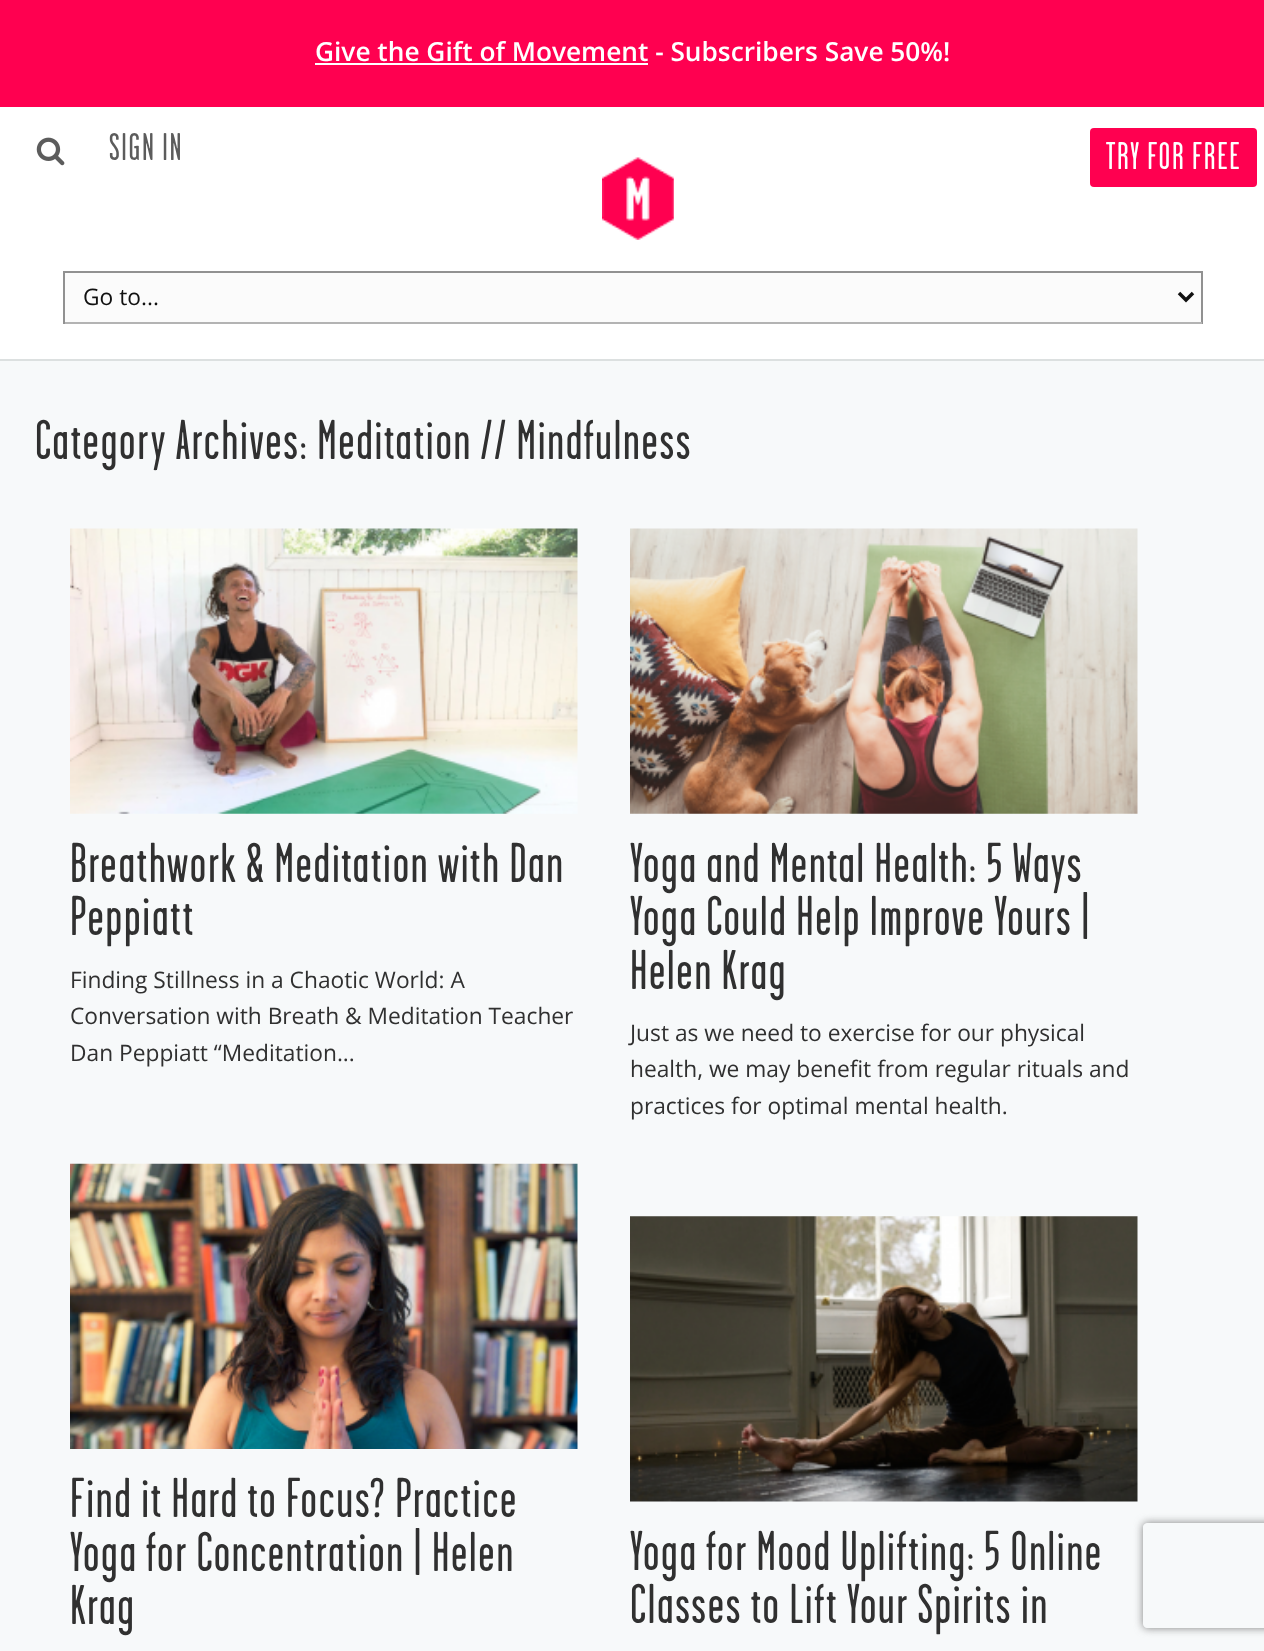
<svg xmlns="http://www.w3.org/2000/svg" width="1264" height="1651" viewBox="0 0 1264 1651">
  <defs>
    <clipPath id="clip1"><path d="M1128 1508H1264V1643H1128ZM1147 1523H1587C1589 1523 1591 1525 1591 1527V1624C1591 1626 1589 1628 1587 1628H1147C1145 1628 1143 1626 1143 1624V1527C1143 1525 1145 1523 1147 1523Z" clip-rule="evenodd"/></clipPath>
  </defs>
  <rect width="100%" height="100%" fill="rgb(247,249,250)"/>
  <rect x="0" y="0" width="1264" height="107" fill="rgb(255,0,80)"/>
  <text x="315" y="61" font-family="Open Sans" font-size="26.25" font-weight="600" fill="rgb(255,255,255)">Give the Gift of Movement - Subscribers Save 50%!</text>
  <rect x="315" y="63" width="333" height="2" fill="rgb(255,255,255)"/>
  <rect x="0" y="107" width="1264" height="252" fill="rgb(255,255,255)"/>
  <rect x="0" y="359" width="1264" height="2" fill="rgb(220,224,224)"/>
  <image x="36" y="137" width="29" height="29" href="pic1.png"/>
  <text x="109" y="160" font-family="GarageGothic" font-size="38.5" letter-spacing="1.75" fill="rgb(92,92,92)">SIGN IN</text>
  <rect x="1090" y="128" width="167" height="59" rx="4" fill="rgb(255,0,80)"/>
  <text x="1106" y="169" font-family="GarageGothic" font-size="38.5" letter-spacing="1.75" fill="rgb(255,255,255)">TRY FOR FREE</text>
  <image x="602" y="157" width="72" height="83" href="pic2.png"/>
  <rect x="65" y="273" width="1136" height="49" fill="rgb(251,251,251)"/>
  <rect x="63" y="271" width="1139" height="2" fill="rgb(145,145,145)"/>
  <rect x="1201" y="271" width="2" height="53" fill="rgb(145,145,145)"/>
  <rect x="63" y="322" width="1139" height="2" fill="rgb(179,179,179)"/>
  <rect x="63" y="271" width="2" height="53" fill="rgb(145,145,145)"/>
  <path d="M1179 293L1186 300L1193 293" fill="none" stroke="rgb(17,17,17)" stroke-width="3.5"/>
  <text x="83" y="305" font-family="Open Sans" font-size="22.75" fill="rgb(17,17,17)">Go to...</text>
  <text x="35" y="459" font-family="GarageGothic" font-size="56" letter-spacing="1.75" fill="rgb(48,48,48)">Category Archives: Meditation // Mindfulness</text>
  <image x="70" y="528" width="508" height="286" href="pic3.png"/>
  <g font-family="GarageGothic" font-size="56" letter-spacing="1.75" fill="rgb(48,48,48)">
    <text>
      <tspan x="70" y="882">Breathwork &amp; Meditation with Dan</tspan>
      <tspan x="70" y="935">Peppiatt</tspan>
    </text>
  </g>
  <g font-family="Open Sans" font-size="22.75" fill="rgb(48,48,48)">
    <text>
      <tspan x="70" y="988">Finding Stillness in a Chaotic World: A</tspan>
      <tspan x="70" y="1024">Conversation with Breath &amp; Meditation Teacher</tspan>
      <tspan x="70" y="1061">Dan Peppiatt “Meditation...</tspan>
    </text>
  </g>
  <image x="630" y="528" width="508" height="286" href="pic4.png"/>
  <g font-family="GarageGothic" font-size="56" letter-spacing="1.75" fill="rgb(48,48,48)">
    <text>
      <tspan x="630" y="882">Yoga and Mental Health: 5 Ways</tspan>
      <tspan x="630" y="935">Yoga Could Help Improve Yours |</tspan>
      <tspan x="630" y="989">Helen Krag</tspan>
    </text>
  </g>
  <g font-family="Open Sans" font-size="22.75" fill="rgb(48,48,48)">
    <text>
      <tspan x="630" y="1041">Just as we need to exercise for our physical</tspan>
      <tspan x="630" y="1077">health, we may benefit from regular rituals and</tspan>
      <tspan x="630" y="1114">practices for optimal mental health.</tspan>
    </text>
  </g>
  <image x="70" y="1163" width="508" height="286" href="pic5.png"/>
  <g font-family="GarageGothic" font-size="56" letter-spacing="1.75" fill="rgb(48,48,48)">
    <text>
      <tspan x="70" y="1517">Find it Hard to Focus? Practice</tspan>
      <tspan x="70" y="1571">Yoga for Concentration | Helen</tspan>
      <tspan x="70" y="1624">Krag</tspan>
    </text>
  </g>
  <image x="630" y="1216" width="508" height="286" href="pic6.png"/>
  <g font-family="GarageGothic" font-size="56" letter-spacing="1.75" fill="rgb(48,48,48)">
    <text>
      <tspan x="630" y="1570">Yoga for Mood Uplifting: 5 Online</tspan>
      <tspan x="630" y="1623">Classes to Lift Your Spirits in</tspan>
    </text>
  </g>
  <g clip-path="url(#clip1)">
    <rect x="1143" y="1523" width="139" height="105" rx="4" fill="rgb(128,128,128)" filter="blur(4.5px)"/>
  </g>
</svg>
